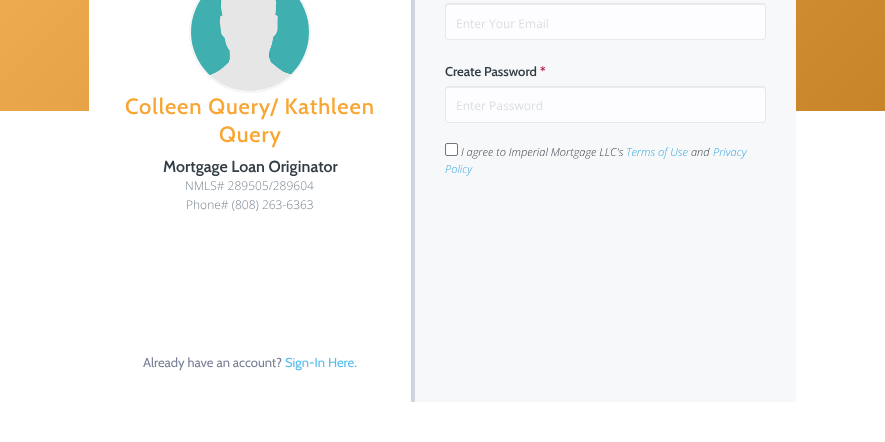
<svg xmlns="http://www.w3.org/2000/svg" width="885" height="442" viewBox="0 0 885 442">
  <defs>
    <linearGradient id="g1" gradientUnits="userSpaceOnUse" x1="774" y1="222" x2="111" y2="-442"><stop offset="0" stop-color="rgb(199,132,40)"/><stop offset="1" stop-color="rgb(250,183,91)"/></linearGradient>
  </defs>
  <rect width="100%" height="100%" fill="rgb(255,255,255)"/>
  <rect x="0" y="0" width="885" height="111" fill="url(#g1)"/>
  <path d="M94-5H411V402H94C91 402 89 400 89 397V0C89-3 91-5 94-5Z" fill="rgb(255,255,255)"/>
  <circle cx="250" cy="32" r="60" fill="none" stroke="rgb(244,245,245)" stroke-width="2"/>
  <image x="191" y="0" width="118" height="91" href="pic1.png"/>
  <g font-family="Cabin" font-size="22" font-weight="500" letter-spacing="0.9" fill="rgb(248,165,49)">
    <text x="125" y="114">Colleen Query/ Kathleen</text>
    <text x="219" y="142">Query</text>
  </g>
  <text x="163" y="172" font-family="Cabin" font-size="16" font-weight="600" fill="rgb(50,61,69)">Mortgage Loan Originator</text>
  <g font-family="Open Sans" font-size="12" font-weight="300" fill="rgb(118,131,143)">
    <text x="185" y="190">NMLS# 289505/289604</text>
    <text x="186" y="209">Phone# (808) 263-6363</text>
  </g>
  <text x="143" y="367" font-family="Cabin" font-size="13" fill="rgb(121,129,151)">Already have an account?</text>
  <text x="285" y="367" font-family="Cabin" font-size="13" fill="rgb(84,188,238)">Sign-In Here.</text>
  <path d="M415-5H791C794-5 796-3 796 0V397C796 400 794 402 791 402H415Z" fill="rgb(247,248,250)"/>
  <rect x="411" y="0" width="4" height="402" fill="rgb(207,211,223)"/>
  <rect x="446" y="4" width="319" height="35" rx="2" fill="rgb(253,253,255)"/>
  <path d="M448 5H763C764 5 765 6 765 7C765 6 765 4 763 4H447L446 5V7C446 6 447 5 448 5Z" fill="rgba(0,0,0,0.07)"/>
  <rect x="445.5" y="3.5" width="320" height="36" rx="2.5" fill="none" stroke="rgb(231,232,237)"/>
  <text x="456" y="28" font-family="Open Sans" font-size="12" fill="rgb(219,223,226)">Enter Your Email</text>
  <text x="445" y="76" font-family="Cabin" font-size="13" font-weight="600" fill="rgb(50,61,69)">Create Password</text>
  <text x="540" y="76" font-family="Cabin" font-size="13" font-weight="600" fill="rgb(186,29,77)">*</text>
  <rect x="446" y="87" width="319" height="35" rx="2" fill="rgb(253,253,255)"/>
  <path d="M448 88H763C764 88 765 89 765 90C765 89 765 87 763 87H447L446 88V90C446 89 447 88 448 88Z" fill="rgba(0,0,0,0.07)"/>
  <rect x="445.5" y="86.5" width="320" height="36" rx="2.5" fill="none" stroke="rgb(231,232,237)"/>
  <text x="456" y="110" font-family="Open Sans" font-size="12" fill="rgb(219,223,226)">Enter Password</text>
  <rect x="445.5" y="143.5" width="12" height="12" rx="1.5" fill="rgb(255,255,255)" stroke="rgb(118,118,118)"/>
  <text x="461" y="156" font-family="Open Sans" font-size="11" font-weight="300" font-style="italic" fill="rgb(50,61,69)">I agree to Imperial Mortgage LLC's</text>
  <text x="626" y="156" font-family="Open Sans" font-size="11" font-weight="300" font-style="italic" fill="rgb(56,166,219)">Terms of Use</text>
  <text x="691" y="156" font-family="Open Sans" font-size="11" font-weight="300" font-style="italic" fill="rgb(50,61,69)">and</text>
  <g font-family="Open Sans" font-size="11" font-weight="300" font-style="italic" fill="rgb(56,166,219)">
    <text x="713" y="156">Privacy</text>
    <text x="445" y="173">Policy</text>
  </g>
</svg>
